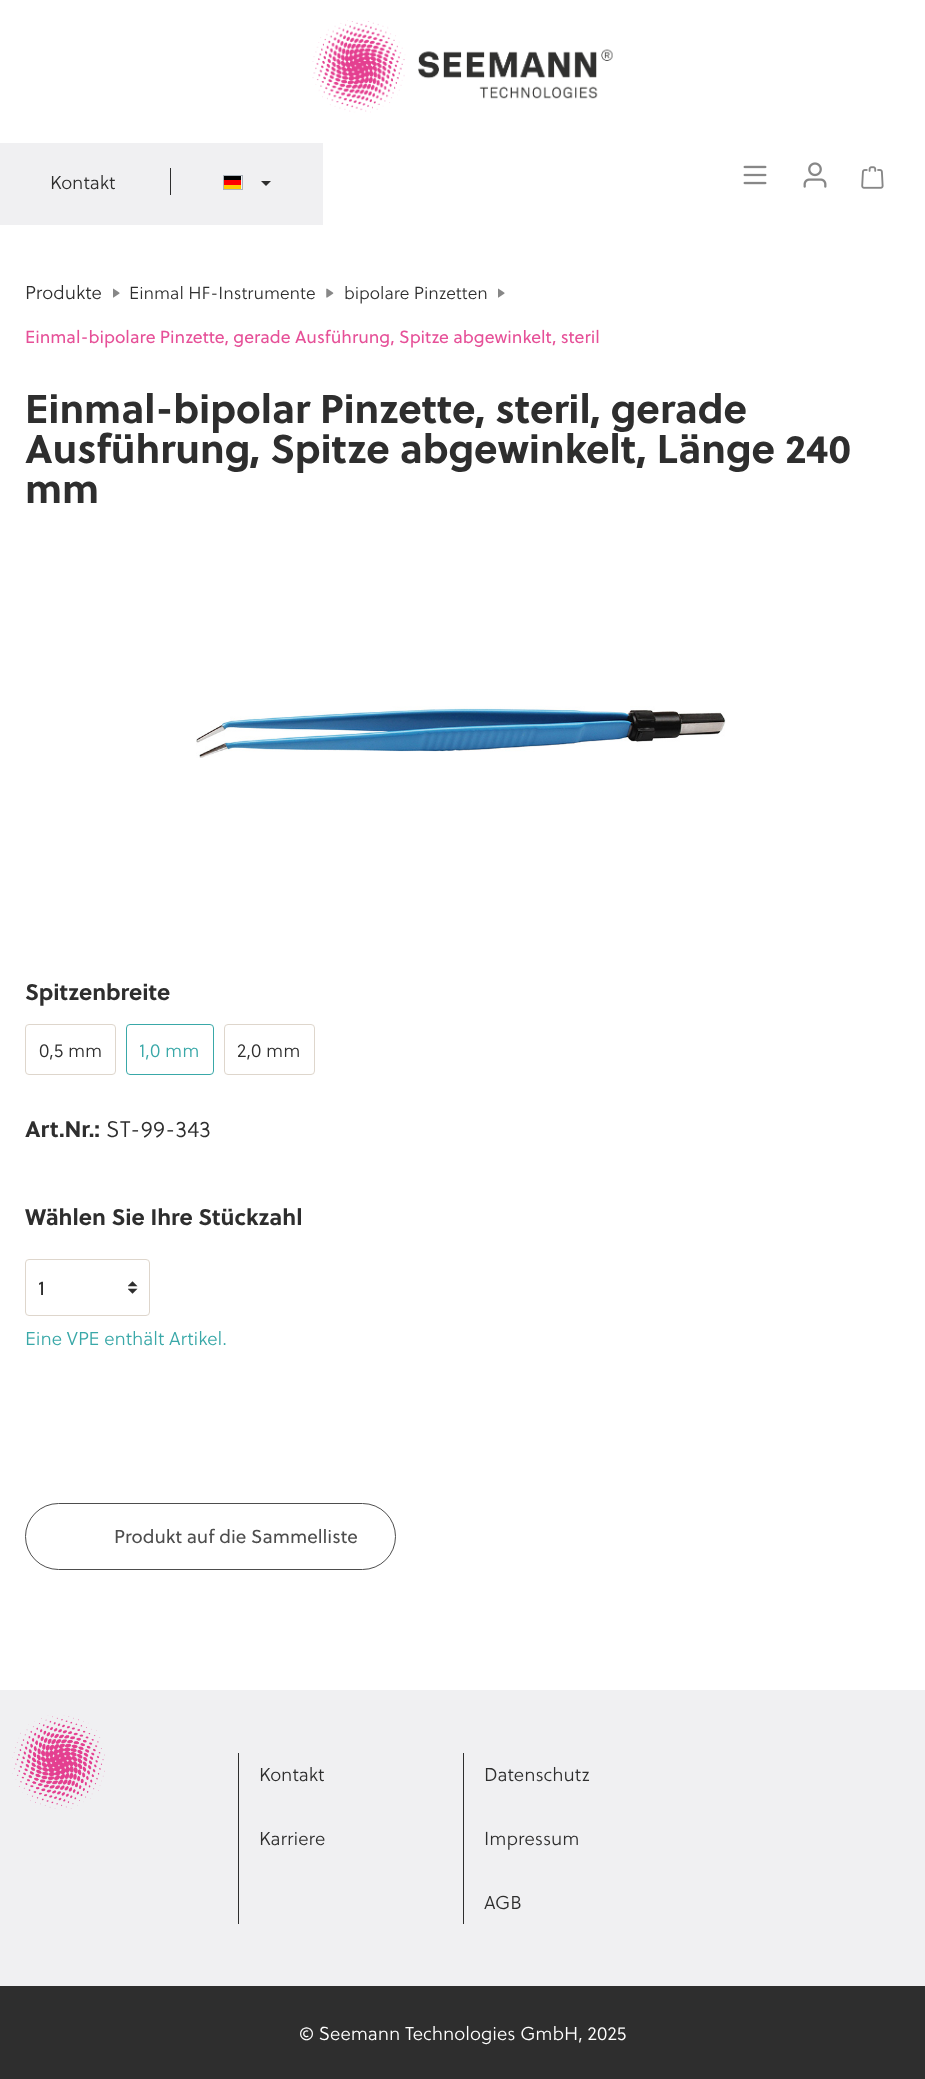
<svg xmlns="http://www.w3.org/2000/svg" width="925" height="2079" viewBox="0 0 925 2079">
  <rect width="100%" height="100%" fill="rgb(255,255,255)"/>
  <image x="312" y="20" width="301" height="93" href="pic1.png"/>
  <rect x="0" y="143" width="323" height="82" fill="rgb(240,240,242)"/>
  <text x="50" y="189" font-family="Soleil" font-size="18.75" font-weight="300" fill="rgb(46,46,46)">Kontakt</text>
  <rect x="170" y="168" width="1" height="27" fill="rgb(46,46,46)"/>
  <rect x="224" y="176" width="17" height="4" fill="rgb(0,0,0)"/>
  <rect x="224" y="180" width="17" height="5" fill="rgb(255,0,0)"/>
  <rect x="224" y="185" width="17" height="4" fill="rgb(255,204,0)"/>
  <rect x="223.5" y="175.5" width="19" height="14" fill="none" stroke="rgb(173,181,189)"/>
  <path d="M261 181H271L266 186Z" fill="rgb(46,46,46)"/>
  <image x="743" y="165" width="24" height="20" href="pic2.png"/>
  <image x="803" y="162" width="24" height="26" href="pic3.png"/>
  <image x="861" y="166" width="23" height="23" href="pic4.png"/>
  <text x="25" y="299" font-family="Soleil" font-size="18.75" font-weight="300" fill="rgb(46,46,46)">Produkte</text>
  <image x="113" y="288" width="7" height="10" href="pic5.png"/>
  <text x="129" y="299" font-family="Soleil" font-size="17.5" font-weight="300" fill="rgb(46,46,46)">Einmal HF-Instrumente</text>
  <image x="326" y="288" width="8" height="10" href="pic6.png"/>
  <text x="344" y="299" font-family="Soleil" font-size="17.5" font-weight="300" fill="rgb(46,46,46)">bipolare Pinzetten</text>
  <image x="498" y="288" width="7" height="10" href="pic5.png"/>
  <text x="25" y="343" font-family="Soleil" font-size="17.5" fill="rgb(230,80,152)">Einmal-bipolare Pinzette, gerade Ausführung, Spitze abgewinkelt, steril</text>
  <g font-family="Soleil" font-size="40" font-weight="bold" fill="rgb(46,46,46)">
    <text>
      <tspan x="25" y="423">Einmal-bipolar Pinzette, steril, gerade</tspan>
      <tspan x="25" y="463">Ausführung, Spitze abgewinkelt, Länge 240</tspan>
      <tspan x="25" y="503">mm</tspan>
    </text>
  </g>
  <image x="196" y="706" width="530" height="52" href="pic7.png"/>
  <text x="25" y="1000" font-family="Soleil" font-size="22.5" font-weight="bold" fill="rgb(46,46,46)">Spitzenbreite</text>
  <rect x="25.5" y="1024.5" width="90" height="50" rx="3.5" fill="none" stroke="rgb(222,214,204)"/>
  <text x="39" y="1057" font-family="Soleil" font-size="18.75" font-weight="300" fill="rgb(46,46,46)">0,5 mm</text>
  <rect x="126.5" y="1024.5" width="87" height="50" rx="3.5" fill="none" stroke="rgb(57,168,168)"/>
  <text x="139" y="1057" font-family="Soleil" font-size="18.75" font-weight="300" fill="rgb(57,168,168)">1,0 mm</text>
  <rect x="224.5" y="1024.5" width="90" height="50" rx="3.5" fill="none" stroke="rgb(222,214,204)"/>
  <text x="237" y="1057" font-family="Soleil" font-size="18.75" font-weight="300" fill="rgb(46,46,46)">2,0 mm</text>
  <text x="25" y="1137" font-family="Soleil" font-size="22.5" font-weight="bold" fill="rgb(46,46,46)">Art.Nr.:</text>
  <text x="106" y="1137" font-family="Soleil" font-size="22.5" font-weight="300" fill="rgb(46,46,46)">ST-99-343</text>
  <text x="25" y="1225" font-family="Soleil" font-size="22.5" font-weight="bold" fill="rgb(46,46,46)">Wählen Sie Ihre Stückzahl</text>
  <image x="128" y="1281" width="10" height="13" href="pic8.png"/>
  <rect x="25.5" y="1259.5" width="124" height="56" rx="3.5" fill="none" stroke="rgb(222,214,204)"/>
  <text x="38" y="1295" font-family="Soleil" font-size="20" fill="rgb(46,46,46)">1</text>
  <text x="25" y="1345" font-family="Soleil" font-size="18.75" font-weight="300" fill="rgb(57,168,168)">Eine VPE enthält Artikel.</text>
  <rect x="25.5" y="1503.5" width="370" height="66" rx="33" fill="none" stroke="rgb(77,77,77)"/>
  <text x="114" y="1543" font-family="Soleil" font-size="18.75" fill="rgb(77,77,77)">Produkt auf die Sammelliste</text>
  <rect x="0" y="1690" width="925" height="296" fill="rgb(240,240,242)"/>
  <image x="12" y="1715" width="93" height="94" href="pic9.png"/>
  <rect x="238" y="1753" width="1" height="171" fill="rgb(46,46,46)"/>
  <g font-family="Soleil" font-size="18.75" font-weight="300" fill="rgb(46,46,46)">
    <text x="259" y="1781">Kontakt</text>
    <text x="259" y="1845">Karriere</text>
  </g>
  <rect x="463" y="1753" width="1" height="171" fill="rgb(46,46,46)"/>
  <g font-family="Soleil" font-size="18.75" font-weight="300" fill="rgb(46,46,46)">
    <text x="484" y="1781">Datenschutz</text>
    <text x="484" y="1845">Impressum</text>
    <text x="484" y="1909">AGB</text>
  </g>
  <rect x="0" y="1986" width="925" height="93" fill="rgb(46,46,46)"/>
  <text x="299" y="2040" font-family="Soleil" font-size="18.75" font-weight="300" fill="rgb(255,255,255)">© Seemann Technologies GmbH, 2025</text>
</svg>
